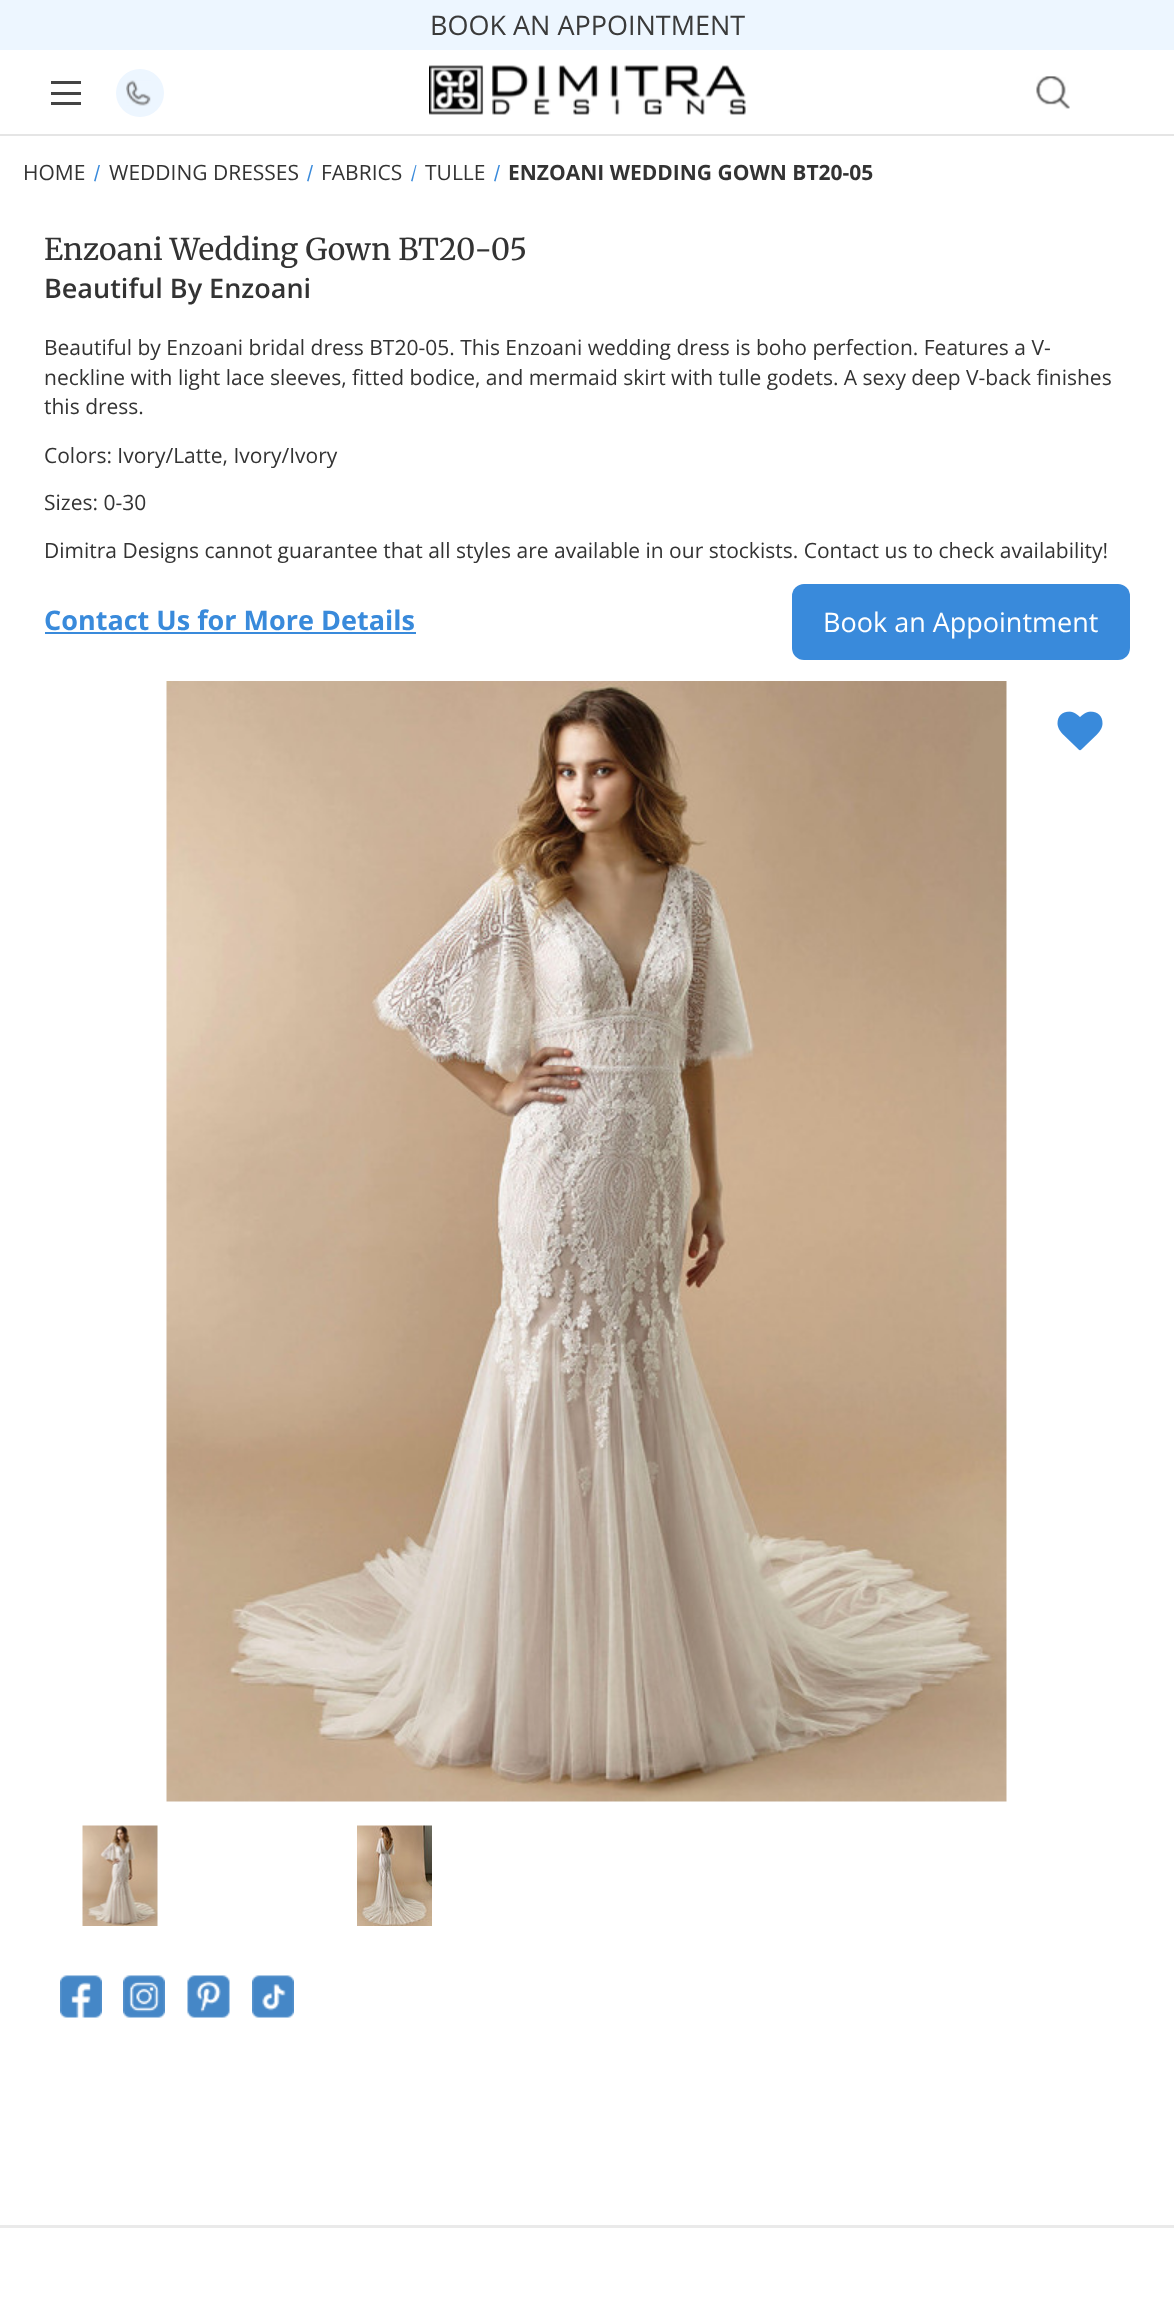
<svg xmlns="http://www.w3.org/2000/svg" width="1174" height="2298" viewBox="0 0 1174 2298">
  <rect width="100%" height="100%" fill="rgb(255,255,255)"/>
  <rect x="0" y="134" width="1174" height="2" fill="rgb(229,229,229)"/>
  <rect x="0" y="0" width="1174" height="50" fill="rgb(237,246,255)"/>
  <text x="430" y="35" font-family="Open Sans" font-size="27" fill="rgb(58,58,58)">BOOK AN APPOINTMENT</text>
  <image x="429" y="65" width="317" height="50" href="pic1.png"/>
  <rect x="51" y="92" width="30" height="3" fill="rgb(68,68,68)"/>
  <rect x="51" y="81" width="30" height="3" fill="rgb(68,68,68)"/>
  <rect x="51" y="102" width="30" height="3" fill="rgb(68,68,68)"/>
  <circle cx="140" cy="93" r="24" fill="rgb(237,246,255)"/>
  <image x="126" y="80" width="25" height="26" href="pic2.png"/>
  <image x="1036" y="76" width="34" height="33" href="pic3.png"/>
  <text x="23" y="180" font-family="Open Sans" font-size="21" fill="rgb(51,51,51)">HOME</text>
  <path d="M98.5 165H100L95.5 181.5L94 181Z" fill="rgb(57,138,219)"/>
  <text x="109" y="180" font-family="Open Sans" font-size="21" fill="rgb(51,51,51)">WEDDING DRESSES</text>
  <path d="M311.5 165H313L308.5 181.5L307 181Z" fill="rgb(57,138,219)"/>
  <text x="321" y="180" font-family="Open Sans" font-size="21" fill="rgb(51,51,51)">FABRICS</text>
  <path d="M415.5 165H416.5L412.5 181.5L411 181Z" fill="rgb(57,138,219)"/>
  <text x="425" y="180" font-family="Open Sans" font-size="21" fill="rgb(51,51,51)">TULLE</text>
  <path d="M498.5 165H500L495.5 181.5L494 181Z" fill="rgb(57,138,219)"/>
  <text x="508" y="180" font-family="Open Sans" font-size="21" font-weight="bold" fill="rgb(51,51,51)">ENZOANI WEDDING GOWN BT20-05</text>
  <text x="44" y="260" font-family="Merriweather" font-size="30" fill="rgb(51,51,51)">Enzoani Wedding Gown BT20-05</text>
  <text x="44" y="298" font-family="Open Sans" font-size="27" font-weight="600" fill="rgb(51,51,51)">Beautiful By Enzoani</text>
  <g font-family="Open Sans" font-size="21" fill="rgb(51,51,51)">
    <text>
      <tspan x="44" y="355">Beautiful by Enzoani bridal dress BT20-05. This Enzoani wedding dress is boho perfection. Features a V-</tspan>
      <tspan x="44" y="385">neckline with light lace sleeves, fitted bodice, and mermaid skirt with tulle godets. A sexy deep V-back finishes</tspan>
      <tspan x="44" y="414">this dress.</tspan>
    </text>
    <text x="44" y="463">Colors: Ivory/Latte, Ivory/Ivory</text>
    <text x="44" y="510">Sizes: 0-30</text>
    <text x="44" y="558">Dimitra Designs cannot guarantee that all styles are available in our stockists. Contact us to check availability!</text>
  </g>
  <text x="44" y="630" font-family="Open Sans" font-size="27" font-weight="bold" fill="rgb(57,138,219)">Contact Us for More Details</text>
  <rect x="45" y="632" width="371" height="2" fill="rgb(57,138,219)"/>
  <rect x="792" y="584" width="338" height="76" rx="12" fill="rgb(57,138,219)"/>
  <text x="823" y="632" font-family="Open Sans" font-size="27" fill="rgb(255,255,255)">Book an Appointment</text>
  <image x="166" y="681" width="841" height="1121" href="pic4.png"/>
  <image x="1057" y="711" width="46" height="40" href="pic5.png"/>
  <image x="60" y="1975" width="42" height="43" href="pic6.png"/>
  <image x="123" y="1975" width="42" height="43" href="pic7.png"/>
  <image x="187" y="1975" width="43" height="43" href="pic8.png"/>
  <image x="252" y="1975" width="42" height="43" href="pic9.png"/>
  <image x="82" y="1825" width="76" height="101" href="pic10.png"/>
  <image x="357" y="1825" width="75" height="101" href="pic11.png"/>
  <rect x="0" y="2225" width="1174" height="3" fill="rgb(234,234,234)"/>
</svg>
